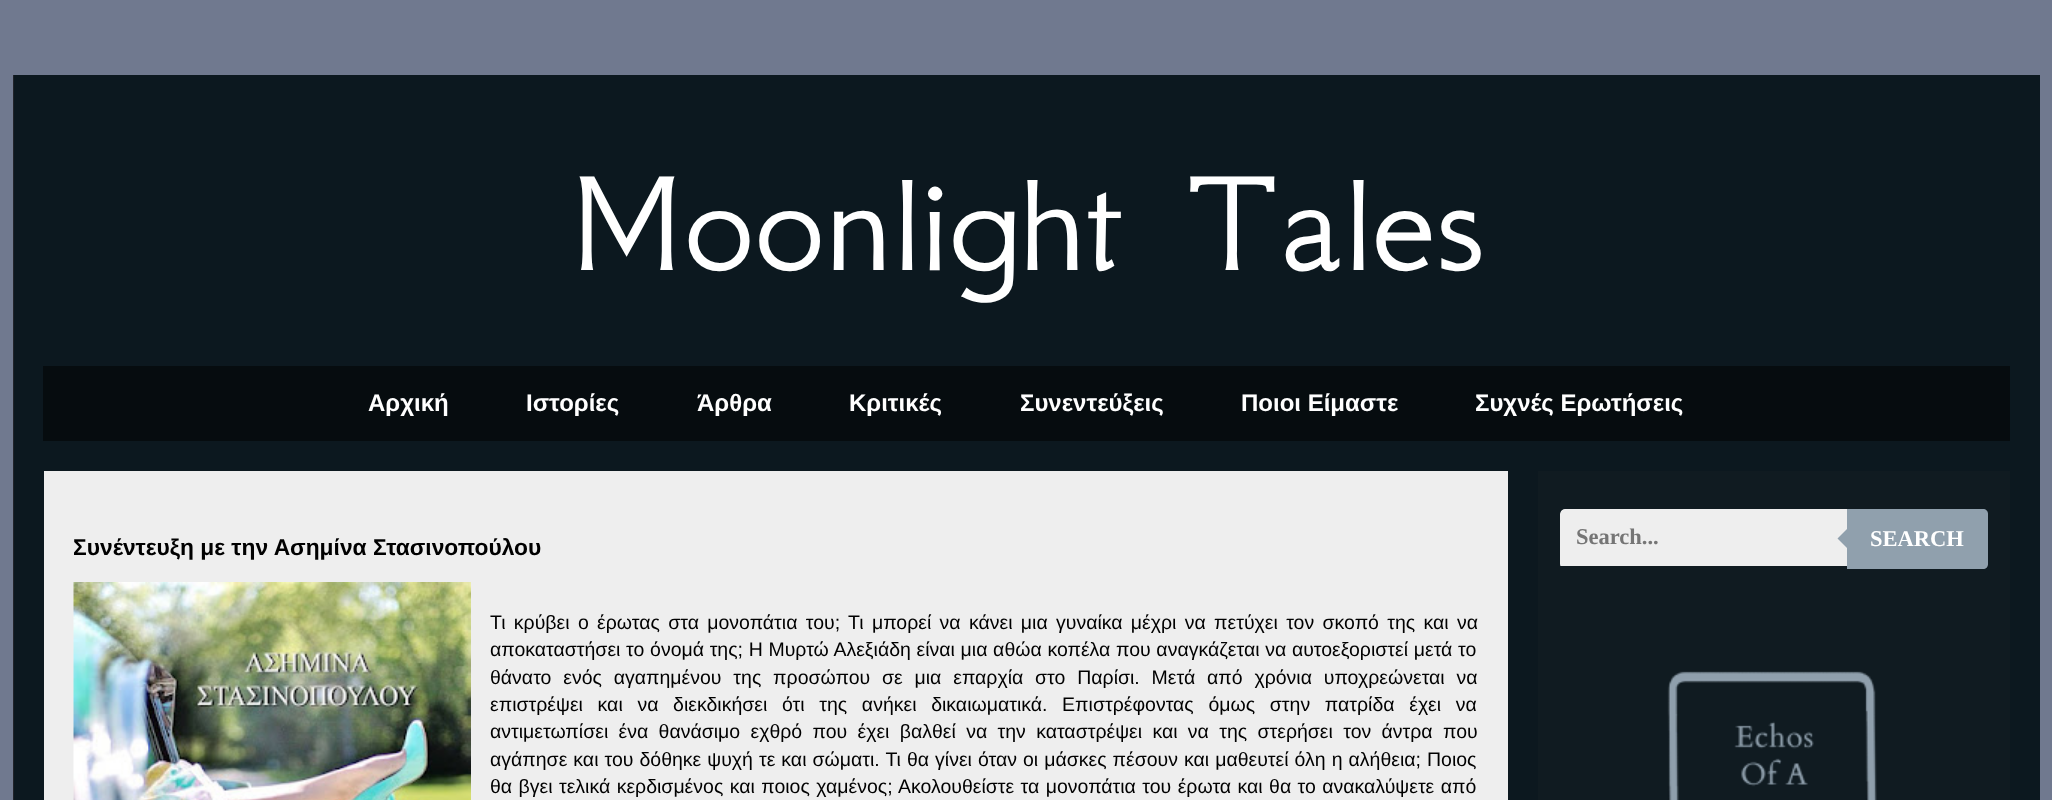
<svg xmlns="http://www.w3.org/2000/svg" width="2052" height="800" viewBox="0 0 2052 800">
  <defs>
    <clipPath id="clip1"><rect x="1560" y="509" width="428" height="60" rx="5"/></clipPath>
  </defs>
  <rect width="100%" height="100%" fill="rgb(112,121,143)"/>
  <rect x="13" y="75" width="1" height="725" fill="rgb(34,36,43)"/>
  <rect x="14" y="75" width="2026" height="725" fill="rgb(12,24,31)"/>
  <text x="569" y="270" font-family="GFS Neohellenic" font-size="150" fill="rgb(255,255,255)">Moonlight Tales</text>
  <rect x="43" y="366" width="1967" height="75" fill="rgb(6,12,15)"/>
  <g font-family="Liberation Sans" font-size="24" font-weight="bold" fill="rgb(255,255,255)">
    <text x="368" y="411">Αρχική</text>
    <text x="526" y="411">Ιστορίες</text>
    <text x="697" y="411">Άρθρα</text>
    <text x="849" y="411">Κριτικές</text>
    <text x="1020" y="411">Συνεντεύξεις</text>
    <text x="1241" y="411">Ποιοι Είμαστε</text>
    <text x="1475" y="411">Συχνές Ερωτήσεις</text>
  </g>
  <rect x="1538" y="471" width="472" height="329" fill="rgb(16,27,33)"/>
  <rect x="44" y="471" width="1464" height="329" fill="rgb(238,238,238)"/>
  <text x="73" y="555" font-family="Liberation Sans" font-size="22.8" font-weight="bold" fill="rgb(0,0,0)">Συνέντευξη με την Ασημίνα Στασινοπούλου</text>
  <image x="73" y="582" width="398" height="218" href="pic1.png"/>
  <g font-family="Liberation Sans" font-size="19.5" fill="rgb(0,0,0)">
    <text>
      <tspan x="490" y="629" word-spacing="2.9">Τι κρύβει ο έρωτας στα μονοπάτια του; Τι μπορεί να κάνει μια γυναίκα μέχρι να πετύχει τον σκοπό της και να</tspan>
      <tspan x="490" y="656" word-spacing="0.25">αποκαταστήσει το όνομά της; Η Μυρτώ Αλεξιάδη είναι μια αθώα κοπέλα που αναγκάζεται να αυτοεξοριστεί μετά το</tspan>
      <tspan x="490" y="684" word-spacing="6.4">θάνατο ενός αγαπημένου της προσώπου σε μια επαρχία στο Παρίσι. Μετά από χρόνια υποχρεώνεται να</tspan>
      <tspan x="490" y="711" word-spacing="9.25">επιστρέψει και να διεκδικήσει ότι της ανήκει δικαιωματικά. Επιστρέφοντας όμως στην πατρίδα έχει να</tspan>
      <tspan x="490" y="738" word-spacing="4.9">αντιμετωπίσει ένα θανάσιμο εχθρό που έχει βαλθεί να την καταστρέψει και να της στερήσει τον άντρα που</tspan>
      <tspan x="490" y="766" word-spacing="0.6">αγάπησε και του δόθηκε ψυχή τε και σώματι. Τι θα γίνει όταν οι μάσκες πέσουν και μαθευτεί όλη η αλήθεια; Ποιος</tspan>
      <tspan x="490" y="793" word-spacing="1">θα βγει τελικά κερδισμένος και ποιος χαμένος; Ακολουθείστε τα μονοπάτια του έρωτα και θα το ανακαλύψετε από</tspan>
    </text>
  </g>
  <g clip-path="url(#clip1)">
    <path d="M1565 509H1847V566H1560V514C1560 511 1562 509 1565 509Z" fill="rgb(238,238,238)"/>
  </g>
  <text x="1576" y="544" font-family="Liberation Serif" font-size="22.5" font-weight="bold" fill="rgb(117,117,117)">Search...</text>
  <path d="M1847 509H1983C1986 509 1988 511 1988 514V564C1988 567 1986 569 1983 569H1847Z" fill="rgb(144,160,173)"/>
  <path d="M1849.5 526.5V550.5L1837.5 538.5Z" fill="rgb(144,160,173)"/>
  <text x="1870" y="546" font-family="Liberation Serif" font-size="22.5" font-weight="bold" fill="rgb(255,255,255)">SEARCH</text>
  <image x="1667" y="671" width="210" height="129" href="pic2.png"/>
</svg>
